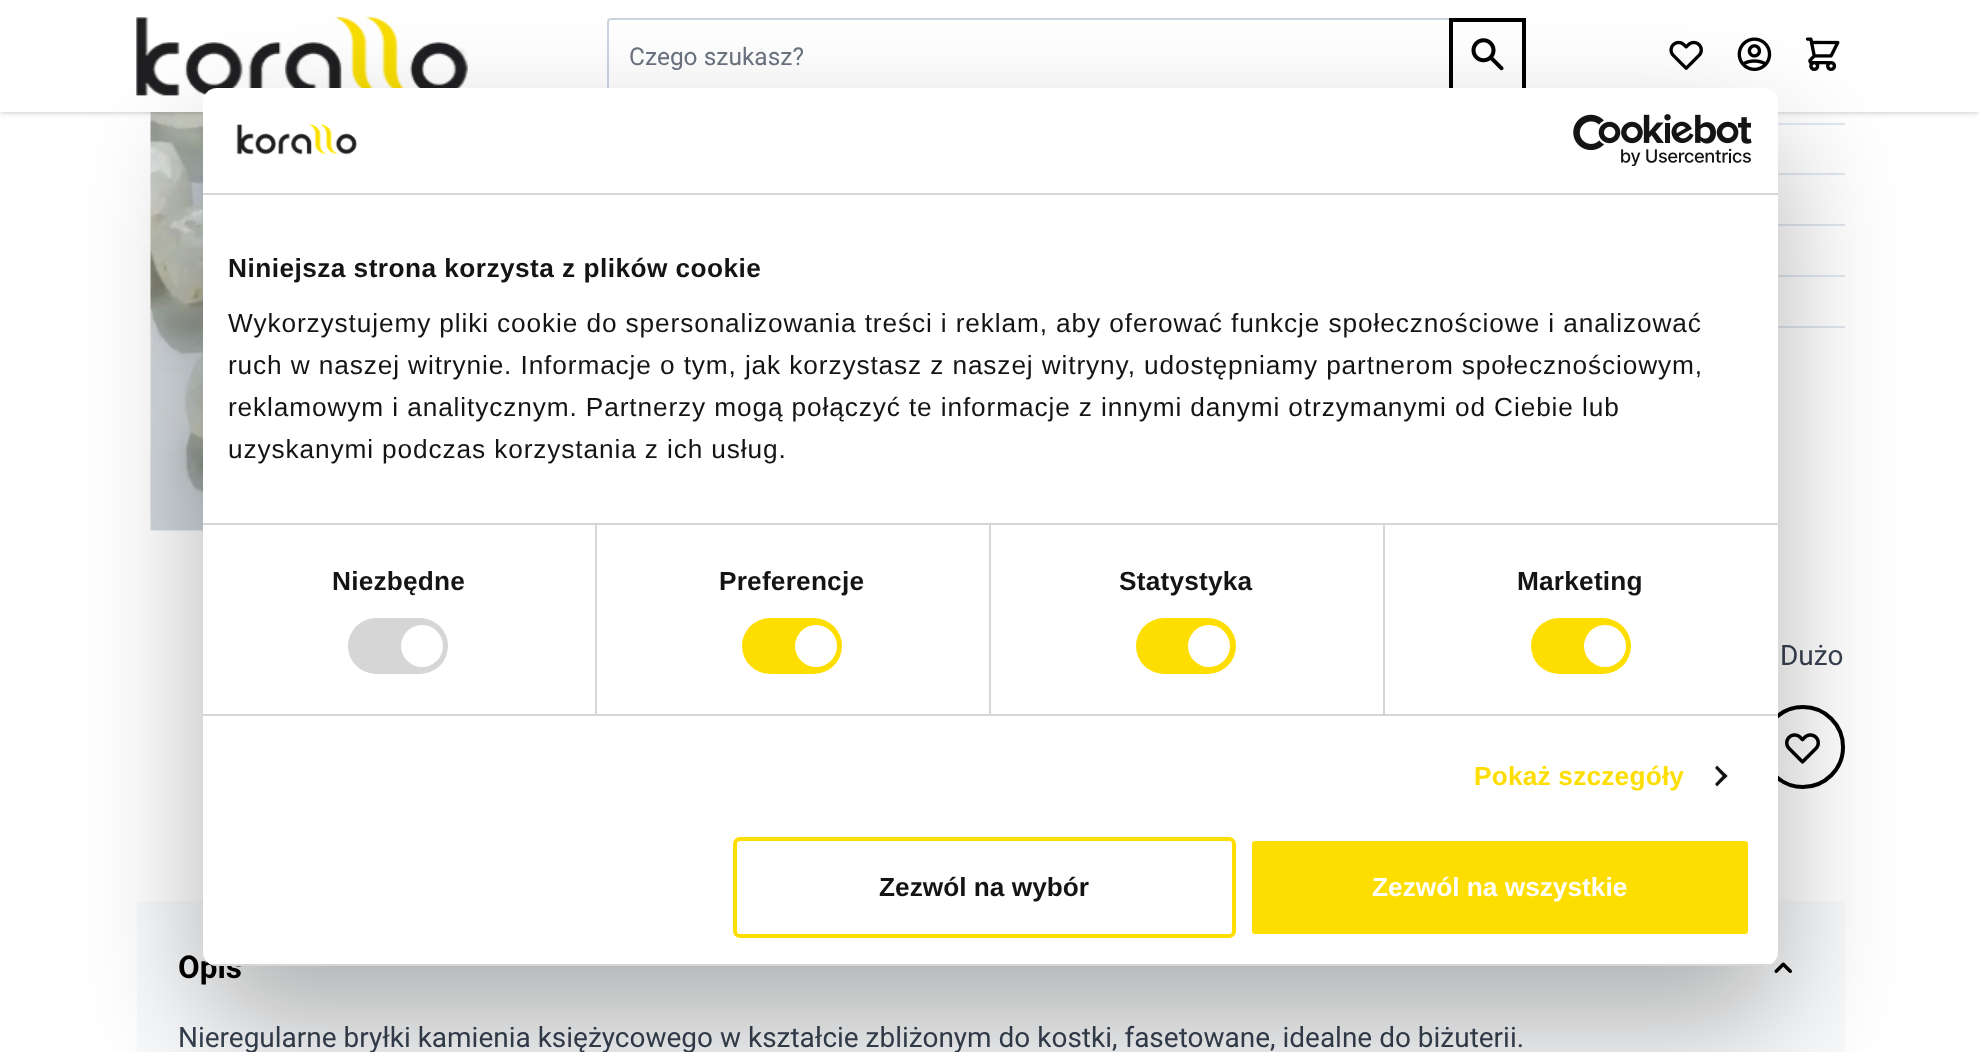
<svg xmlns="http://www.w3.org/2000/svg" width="1979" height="1052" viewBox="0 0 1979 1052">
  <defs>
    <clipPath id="clip1"><rect x="203" y="88" width="1575" height="878" rx="14"/></clipPath>
  </defs>
  <rect width="100%" height="100%" fill="rgb(255,255,255)"/>
  <image x="150" y="112" width="53" height="419" href="pic6.png"/>
  <rect x="2" y="4" width="1976" height="108" fill="rgba(0,0,0,0.1)" filter="blur(2px)"/>
  <rect x="0" y="2" width="1979" height="112" fill="rgba(0,0,0,0.1)" filter="blur(2.5px)"/>
  <rect x="0" y="0" width="1979" height="112" fill="rgb(255,255,255)"/>
  <image x="136" y="17" width="332" height="79" href="pic1.png"/>
  <rect x="608" y="19" width="917" height="75" rx="3" fill="none" stroke="rgb(203,213,225)" stroke-width="2"/>
  <text x="629" y="65" font-family="Roboto" font-size="24.5" fill="rgb(107,114,128)">Czego szukasz?</text>
  <rect x="1451" y="20" width="73" height="73" fill="none" stroke="rgb(0,0,0)" stroke-width="4"/>
  <image x="1471" y="38" width="33" height="33" href="pic2.png"/>
  <image x="1669" y="40" width="34" height="30" href="pic3.png"/>
  <image x="1737" y="37" width="35" height="34" href="pic4.png"/>
  <image x="1805" y="37" width="35" height="34" href="pic5.png"/>
  <rect x="1778" y="123" width="67" height="2" fill="rgb(226,232,240)"/>
  <rect x="1778" y="173" width="67" height="2" fill="rgb(226,232,240)"/>
  <rect x="1778" y="224" width="67" height="2" fill="rgb(226,232,240)"/>
  <rect x="1778" y="275" width="67" height="2" fill="rgb(226,232,240)"/>
  <rect x="1778" y="326" width="67" height="2" fill="rgb(226,232,240)"/>
  <text x="1780" y="665" font-family="Roboto" font-size="28" fill="rgb(55,65,81)">Dużo</text>
  <circle cx="1803" cy="747" r="40" fill="none" stroke="rgb(0,0,0)" stroke-width="4"/>
  <image x="1785" y="733" width="35" height="31" href="pic7.png"/>
  <rect x="137" y="901" width="1708" height="151" fill="rgb(249,250,251)"/>
  <text x="178" y="978" font-family="Roboto" font-size="31.5" font-weight="bold" fill="rgb(0,0,0)">Opis</text>
  <image x="1774" y="962" width="18" height="11" href="pic8.png"/>
  <text x="178" y="1047" font-family="Roboto" font-size="28" fill="rgb(55,65,81)">Nieregularne bryłki kamienia księżycowego w kształcie zbliżonym do kostki, fasetowane, idealne do biżuterii.</text>
  <rect x="203" y="144" width="1575" height="878" rx="14" fill="rgba(0,0,0,0.3)" filter="blur(59.5px)"/>
  <rect x="203" y="88" width="1575" height="878" rx="14" fill="rgb(255,255,255)"/>
  <rect x="203" y="193" width="1575" height="2" fill="rgb(214,214,214)"/>
  <image x="236" y="124" width="121" height="31" href="pic9.png"/>
  <image x="1573" y="114" width="179" height="52" href="pic10.png"/>
  <rect x="203" y="523" width="1575" height="2" fill="rgb(214,214,214)"/>
  <text x="228" y="277" font-family="Liberation Sans" font-size="26.25" font-weight="bold" letter-spacing="0.45" fill="rgb(20,20,20)">Niniejsza strona korzysta z plików cookie</text>
  <g font-family="Liberation Sans" font-size="26.25" letter-spacing="0.88" fill="rgb(20,20,20)">
    <text>
      <tspan x="228" y="332">Wykorzystujemy pliki cookie do spersonalizowania treści i reklam, aby oferować funkcje społecznościowe i analizować</tspan>
      <tspan x="228" y="374">ruch w naszej witrynie. Informacje o tym, jak korzystasz z naszej witryny, udostępniamy partnerom społecznościowym,</tspan>
      <tspan x="228" y="416">reklamowym i analitycznym. Partnerzy mogą połączyć te informacje z innymi danymi otrzymanymi od Ciebie lub</tspan>
      <tspan x="228" y="458">uzyskanymi podczas korzystania z ich usług.</tspan>
    </text>
  </g>
  <rect x="203" y="714" width="1575" height="2" fill="rgb(214,214,214)"/>
  <rect x="595" y="525" width="2" height="189" fill="rgb(214,214,214)"/>
  <text x="332" y="590" font-family="Liberation Sans" font-size="26.25" font-weight="bold" letter-spacing="0.2" fill="rgb(20,20,20)">Niezbędne</text>
  <rect x="348" y="618" width="100" height="56" rx="28" fill="rgb(214,214,214)"/>
  <circle cx="422" cy="646" r="21" fill="rgb(255,255,255)"/>
  <rect x="989" y="525" width="2" height="189" fill="rgb(214,214,214)"/>
  <text x="719" y="590" font-family="Liberation Sans" font-size="26.25" font-weight="bold" letter-spacing="0.2" fill="rgb(20,20,20)">Preferencje</text>
  <rect x="742" y="618" width="100" height="56" rx="28" fill="rgb(254,222,0)"/>
  <circle cx="816" cy="646" r="21" fill="rgb(255,255,255)"/>
  <rect x="1383" y="525" width="2" height="189" fill="rgb(214,214,214)"/>
  <text x="1119" y="590" font-family="Liberation Sans" font-size="26.25" font-weight="bold" letter-spacing="0.2" fill="rgb(20,20,20)">Statystyka</text>
  <rect x="1136" y="618" width="100" height="56" rx="28" fill="rgb(254,222,0)"/>
  <circle cx="1209" cy="646" r="21" fill="rgb(255,255,255)"/>
  <text x="1517" y="590" font-family="Liberation Sans" font-size="26.25" font-weight="bold" letter-spacing="0.2" fill="rgb(20,20,20)">Marketing</text>
  <rect x="1531" y="618" width="100" height="56" rx="28" fill="rgb(254,222,0)"/>
  <circle cx="1605" cy="646" r="21" fill="rgb(255,255,255)"/>
  <text x="1474" y="785" font-family="Liberation Sans" font-size="26.25" font-weight="bold" letter-spacing="0.2" fill="rgb(254,222,0)">Pokaż szczegóły</text>
  <path d="M1717 765.5L1727.5 776L1725 778.5L1715 768Z" fill="rgb(20,20,20)"/>
  <path d="M1725 773.5L1727.5 776L1717 786.5L1715 784Z" fill="rgb(20,20,20)"/>
  <g clip-path="url(#clip1)">
    <rect x="203" y="964" width="1575" height="2" fill="rgb(214,214,214)"/>
  </g>
  <rect x="735" y="839" width="499" height="97" rx="5" fill="none" stroke="rgb(254,222,0)" stroke-width="4"/>
  <text x="879" y="896" font-family="Liberation Sans" font-size="26.25" font-weight="bold" fill="rgb(20,20,20)">Zezwól na wybór</text>
  <rect x="1250" y="839" width="500" height="97" rx="5" fill="rgb(254,222,0)" stroke="rgb(255,255,255)" stroke-width="4"/>
  <text x="1372" y="896" font-family="Liberation Sans" font-size="26.25" font-weight="bold" fill="rgb(255,255,255)">Zezwól na wszystkie</text>
</svg>
